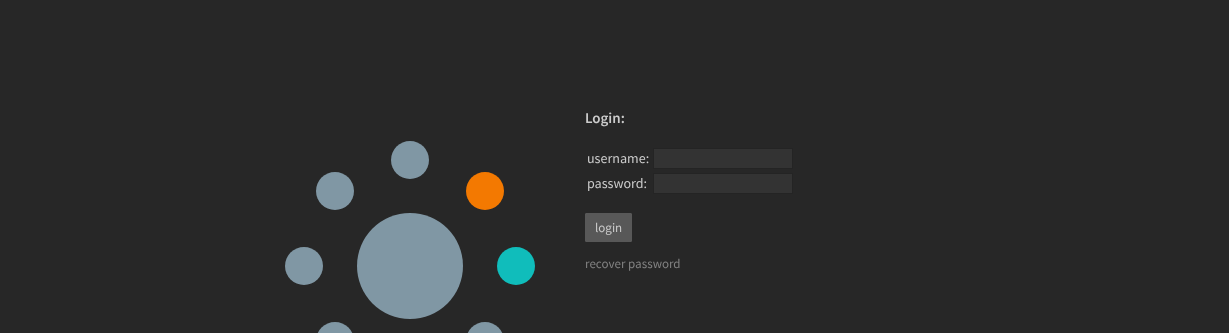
<svg xmlns="http://www.w3.org/2000/svg" width="1229" height="333" viewBox="0 0 1229 333">
  <rect width="100%" height="100%" fill="rgb(39,39,39)"/>
  <circle cx="410" cy="266" r="53" fill="rgb(128,151,164)"/>
  <circle cx="485" cy="191" r="19" fill="rgb(243,121,1)"/>
  <circle cx="516" cy="266" r="19" fill="rgb(16,189,187)"/>
  <circle cx="485" cy="341" r="19" fill="rgb(128,151,164)"/>
  <circle cx="335" cy="341" r="19" fill="rgb(128,151,164)"/>
  <circle cx="304" cy="266" r="19" fill="rgb(128,151,164)"/>
  <circle cx="335" cy="191" r="19" fill="rgb(128,151,164)"/>
  <circle cx="410" cy="160" r="19" fill="rgb(128,151,164)"/>
  <text x="585" y="123" font-family="Source Sans Pro" font-size="15" font-weight="600" fill="rgb(204,204,204)">Login:</text>
  <text x="587" y="163" font-family="Source Sans Pro" font-size="14" fill="rgb(204,204,204)">username:</text>
  <rect x="653.5" y="148.5" width="139" height="20" fill="rgb(51,51,51)" stroke="rgb(36,36,36)"/>
  <text x="587" y="188" font-family="Source Sans Pro" font-size="14" fill="rgb(204,204,204)">password:</text>
  <rect x="653.5" y="173.5" width="139" height="20" fill="rgb(51,51,51)" stroke="rgb(36,36,36)"/>
  <rect x="585.5" y="213.5" width="46" height="28" rx="0.5" fill="rgb(88,88,88)" stroke="rgb(88,88,88)"/>
  <text x="595" y="232" font-family="Source Sans Pro" font-size="13" fill="rgb(204,204,204)">login</text>
  <text x="585" y="268" font-family="Source Sans Pro" font-size="13" fill="rgb(130,130,130)">recover password</text>
</svg>
